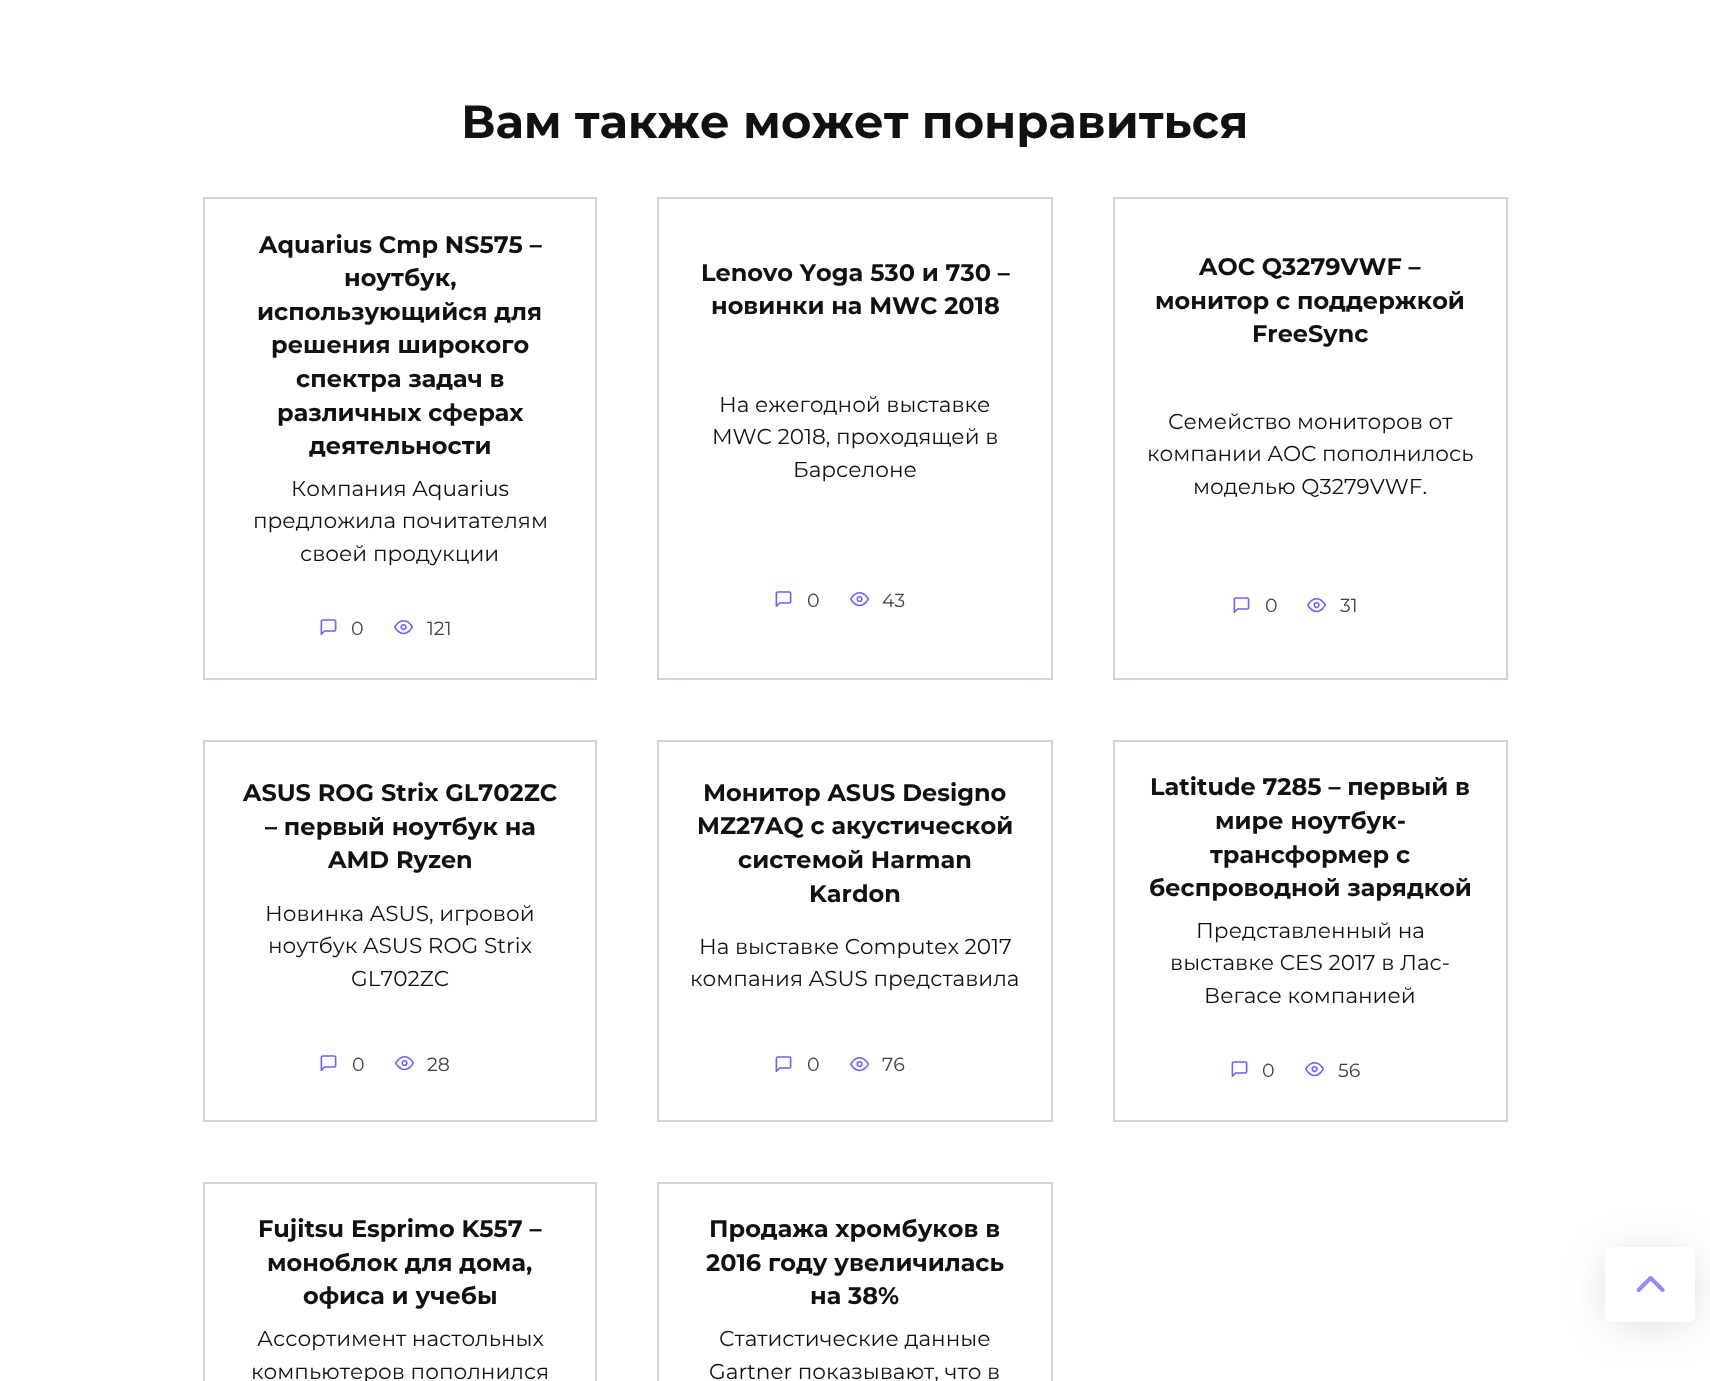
<svg xmlns="http://www.w3.org/2000/svg" width="1710" height="1381" viewBox="0 0 1710 1381">
  <style>*{font-kerning:none!important;font-variant-ligatures:none!important}</style>
  <rect width="100%" height="100%" fill="rgb(255,255,255)"/>
  <text x="461" y="138" font-family="Montserrat" font-size="46.5" font-weight="bold" fill="rgb(17,17,17)">Вам также может понравиться</text>
  <rect x="204" y="198" width="392" height="481" fill="none" stroke="rgb(206,212,218)" stroke-width="2"/>
  <g font-family="Montserrat" font-size="24" font-weight="bold" fill="rgb(17,17,17)">
    <text x="259" y="253">Aquarius Cmp NS575 –</text>
    <text x="344" y="286">ноутбук,</text>
    <text x="257" y="320">использующийся для</text>
    <text x="271" y="353">решения широкого</text>
    <text x="296" y="387">спектра задач в</text>
    <text x="277" y="421">различных сферах</text>
    <text x="309" y="454">деятельности</text>
  </g>
  <g font-family="Montserrat" font-size="21.6" fill="rgb(17,17,17)">
    <text x="291" y="496">Компания Aquarius</text>
    <text x="253" y="528">предложила почитателям</text>
    <text x="300" y="561">своей продукции</text>
  </g>
  <text x="319" y="635" font-family="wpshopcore" font-size="19" fill="rgb(113,98,254)">💬</text>
  <text x="351" y="635" font-family="Montserrat" font-size="19" fill="rgb(65,65,65)">0</text>
  <text x="394" y="635" font-family="wpshopcore" font-size="19" fill="rgb(113,98,254)">👀</text>
  <text x="427" y="635" font-family="Montserrat" font-size="19" fill="rgb(65,65,65)">121</text>
  <rect x="658" y="198" width="394" height="481" fill="none" stroke="rgb(206,212,218)" stroke-width="2"/>
  <g font-family="Montserrat" font-size="24" font-weight="bold" fill="rgb(17,17,17)">
    <text x="701" y="281">Lenovo Yoga 530 и 730 –</text>
    <text x="711" y="314">новинки на MWC 2018</text>
  </g>
  <g font-family="Montserrat" font-size="21.6" fill="rgb(17,17,17)">
    <text x="719" y="412">На ежегодной выставке</text>
    <text x="712" y="444">MWC 2018, проходящей в</text>
    <text x="793" y="477">Барселоне</text>
  </g>
  <text x="774" y="607" font-family="wpshopcore" font-size="19" fill="rgb(113,98,254)">💬</text>
  <text x="807" y="607" font-family="Montserrat" font-size="19" fill="rgb(65,65,65)">0</text>
  <text x="850" y="607" font-family="wpshopcore" font-size="19" fill="rgb(113,98,254)">👀</text>
  <text x="882" y="607" font-family="Montserrat" font-size="19" fill="rgb(65,65,65)">43</text>
  <rect x="1114" y="198" width="393" height="481" fill="none" stroke="rgb(206,212,218)" stroke-width="2"/>
  <g font-family="Montserrat" font-size="24" font-weight="bold" fill="rgb(17,17,17)">
    <text x="1199" y="275">AOC Q3279VWF –</text>
    <text x="1155" y="309">монитор с поддержкой</text>
    <text x="1252" y="342">FreeSync</text>
  </g>
  <g font-family="Montserrat" font-size="21.6" fill="rgb(17,17,17)">
    <text x="1168" y="429">Семейство мониторов от</text>
    <text x="1147" y="461">компании AOC пополнилось</text>
    <text x="1193" y="494">моделью Q3279VWF.</text>
  </g>
  <text x="1232" y="613" font-family="wpshopcore" font-size="19" fill="rgb(113,98,254)">💬</text>
  <text x="1265" y="612" font-family="Montserrat" font-size="19" fill="rgb(65,65,65)">0</text>
  <text x="1307" y="613" font-family="wpshopcore" font-size="19" fill="rgb(113,98,254)">👀</text>
  <text x="1340" y="612" font-family="Montserrat" font-size="19" fill="rgb(65,65,65)">31</text>
  <rect x="204" y="741" width="392" height="380" fill="none" stroke="rgb(206,212,218)" stroke-width="2"/>
  <g font-family="Montserrat" font-size="24" font-weight="bold" fill="rgb(17,17,17)">
    <text x="243" y="801">ASUS ROG Strix GL702ZC</text>
    <text x="265" y="835">– первый ноутбук на</text>
    <text x="328" y="868">AMD Ryzen</text>
  </g>
  <g font-family="Montserrat" font-size="21.6" fill="rgb(17,17,17)">
    <text x="265" y="921">Новинка ASUS, игровой</text>
    <text x="268" y="953">ноутбук ASUS ROG Strix</text>
    <text x="351" y="986">GL702ZC</text>
  </g>
  <text x="319" y="1071" font-family="wpshopcore" font-size="19" fill="rgb(113,98,254)">💬</text>
  <text x="352" y="1071" font-family="Montserrat" font-size="19" fill="rgb(65,65,65)">0</text>
  <text x="395" y="1071" font-family="wpshopcore" font-size="19" fill="rgb(113,98,254)">👀</text>
  <text x="427" y="1071" font-family="Montserrat" font-size="19" fill="rgb(65,65,65)">28</text>
  <rect x="658" y="741" width="394" height="380" fill="none" stroke="rgb(206,212,218)" stroke-width="2"/>
  <g font-family="Montserrat" font-size="24" font-weight="bold" fill="rgb(17,17,17)">
    <text x="703" y="801">Монитор ASUS Designo</text>
    <text x="697" y="834">MZ27AQ с акустической</text>
    <text x="738" y="868">системой Harman</text>
    <text x="809" y="902">Kardon</text>
  </g>
  <g font-family="Montserrat" font-size="21.6" fill="rgb(17,17,17)">
    <text x="699" y="954">На выставке Computex 2017</text>
    <text x="690" y="986">компания ASUS представила</text>
  </g>
  <text x="774" y="1072" font-family="wpshopcore" font-size="19" fill="rgb(113,98,254)">💬</text>
  <text x="807" y="1071" font-family="Montserrat" font-size="19" fill="rgb(65,65,65)">0</text>
  <text x="850" y="1072" font-family="wpshopcore" font-size="19" fill="rgb(113,98,254)">👀</text>
  <text x="882" y="1071" font-family="Montserrat" font-size="19" fill="rgb(65,65,65)">76</text>
  <rect x="1114" y="741" width="393" height="380" fill="none" stroke="rgb(206,212,218)" stroke-width="2"/>
  <g font-family="Montserrat" font-size="24" font-weight="bold" fill="rgb(17,17,17)">
    <text x="1150" y="795">Latitude 7285 – первый в</text>
    <text x="1215" y="829">мире ноутбук-</text>
    <text x="1210" y="863">трансформер с</text>
    <text x="1149" y="896">беспроводной зарядкой</text>
  </g>
  <g font-family="Montserrat" font-size="21.6" fill="rgb(17,17,17)">
    <text x="1196" y="938">Представленный на</text>
    <text x="1170" y="970">выставке CES 2017 в Лас-</text>
    <text x="1204" y="1003">Вегасе компанией</text>
  </g>
  <text x="1230" y="1077" font-family="wpshopcore" font-size="19" fill="rgb(113,98,254)">💬</text>
  <text x="1262" y="1077" font-family="Montserrat" font-size="19" fill="rgb(65,65,65)">0</text>
  <text x="1305" y="1077" font-family="wpshopcore" font-size="19" fill="rgb(113,98,254)">👀</text>
  <text x="1338" y="1077" font-family="Montserrat" font-size="19" fill="rgb(65,65,65)">56</text>
  <rect x="204" y="1183" width="392" height="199" fill="none" stroke="rgb(206,212,218)" stroke-width="2"/>
  <g font-family="Montserrat" font-size="24" font-weight="bold" fill="rgb(17,17,17)">
    <text x="258" y="1237">Fujitsu Esprimo K557 –</text>
    <text x="267" y="1271">моноблок для дома,</text>
    <text x="303" y="1304">офиса и учебы</text>
  </g>
  <g font-family="Montserrat" font-size="21.6" fill="rgb(17,17,17)">
    <text x="257" y="1346">Ассортимент настольных</text>
    <text x="251" y="1379">компьютеров пополнился</text>
  </g>
  <rect x="658" y="1183" width="394" height="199" fill="none" stroke="rgb(206,212,218)" stroke-width="2"/>
  <g font-family="Montserrat" font-size="24" font-weight="bold" fill="rgb(17,17,17)">
    <text x="709" y="1237">Продажа хромбуков в</text>
    <text x="706" y="1271">2016 году увеличилась</text>
    <text x="810" y="1304">на 38%</text>
  </g>
  <g font-family="Montserrat" font-size="21.6" fill="rgb(17,17,17)">
    <text x="719" y="1346">Статистические данные</text>
    <text x="709" y="1379">Gartner показывают, что в</text>
  </g>
  <rect x="1613" y="1259" width="75" height="60" fill="rgba(102,102,102,0.3)" filter="blur(22.5px)"/>
  <rect x="1605" y="1247" width="90" height="75" rx="6" fill="rgb(255,255,255)"/>
  <text x="1626" y="1304" font-family="wpshopcore" font-size="48" fill="rgb(148,137,254)">︿</text>
</svg>
